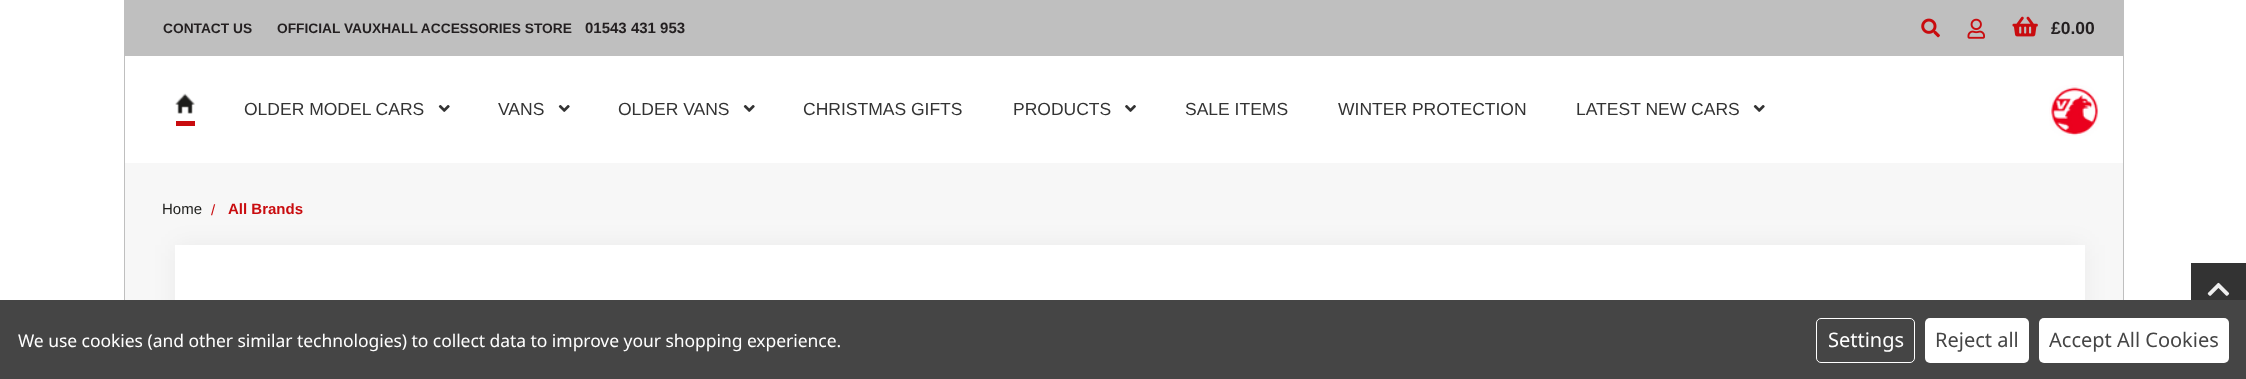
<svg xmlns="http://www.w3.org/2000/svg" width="2246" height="379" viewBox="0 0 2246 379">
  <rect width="100%" height="100%" fill="rgb(255,255,255)"/>
  <rect x="2123" y="0" width="1" height="300" fill="rgb(191,191,191)"/>
  <rect x="124" y="0" width="1" height="300" fill="rgb(191,191,191)"/>
  <rect x="125" y="0" width="1998" height="56" fill="rgb(191,191,191)"/>
  <g font-family="Liberation Sans" font-size="13.75" font-weight="bold" fill="rgb(35,31,32)">
    <text x="163" y="33">CONTACT US</text>
    <text x="277" y="33">OFFICIAL VAUXHALL ACCESSORIES STORE</text>
  </g>
  <text x="585" y="33" font-family="Liberation Sans" font-size="15" font-weight="bold" fill="rgb(35,31,32)">01543 431 953</text>
  <image x="1921" y="18" width="19" height="20" href="pic1.png"/>
  <image x="1967" y="18" width="18" height="21" href="pic2.png"/>
  <image x="2012" y="16" width="26" height="21" href="pic3.png"/>
  <text x="2051" y="34" font-family="Liberation Sans" font-size="17.5" font-weight="bold" fill="rgb(35,31,32)">£0.00</text>
  <image x="175" y="93" width="20" height="21" href="pic4.png"/>
  <rect x="176" y="121" width="19" height="5" fill="rgb(201,12,15)"/>
  <text x="244" y="115" font-family="Liberation Sans" font-size="17.5" fill="rgb(51,51,51)">OLDER MODEL CARS</text>
  <image x="438" y="105" width="12" height="7" href="pic5.png"/>
  <text x="498" y="115" font-family="Liberation Sans" font-size="17.5" fill="rgb(51,51,51)">VANS</text>
  <image x="558" y="105" width="12" height="7" href="pic5.png"/>
  <text x="618" y="115" font-family="Liberation Sans" font-size="17.5" fill="rgb(51,51,51)">OLDER VANS</text>
  <image x="743" y="105" width="12" height="7" href="pic5.png"/>
  <g font-family="Liberation Sans" font-size="17.5" fill="rgb(51,51,51)">
    <text x="803" y="115">CHRISTMAS GIFTS</text>
    <text x="1013" y="115">PRODUCTS</text>
  </g>
  <image x="1125" y="105" width="11" height="7" href="pic6.png"/>
  <g font-family="Liberation Sans" font-size="17.5" fill="rgb(51,51,51)">
    <text x="1185" y="115">SALE ITEMS</text>
    <text x="1338" y="115">WINTER PROTECTION</text>
    <text x="1576" y="115">LATEST NEW CARS</text>
  </g>
  <image x="1753" y="105" width="12" height="7" href="pic5.png"/>
  <image x="2049" y="85" width="50" height="51" href="pic7.png"/>
  <rect x="125" y="163" width="1998" height="137" fill="rgb(247,247,247)"/>
  <rect x="175" y="245" width="1910" height="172" fill="rgba(0,0,0,0.05)" filter="blur(12.5px)"/>
  <text x="162" y="214" font-family="Liberation Sans" font-size="15" fill="rgb(29,29,27)">Home</text>
  <text x="211" y="215" font-family="Liberation Sans" font-size="15" fill="rgb(201,12,15)">/</text>
  <text x="228" y="214" font-family="Liberation Sans" font-size="15" font-weight="bold" fill="rgb(201,12,15)">All Brands</text>
  <rect x="175" y="245" width="1910" height="55" fill="rgb(255,255,255)"/>
  <rect x="2191" y="263" width="55" height="37" fill="rgb(51,51,51)"/>
  <image x="2207" y="282" width="23" height="14" href="pic8.png"/>
  <rect x="0" y="300" width="2246" height="79" fill="rgb(69,69,69)"/>
  <text x="18" y="347" font-family="Noto Sans" font-size="17.5" letter-spacing="-0.05" fill="rgb(255,255,255)">We use cookies (and other similar technologies) to collect data to improve your shopping experience.</text>
  <rect x="1816.5" y="318.5" width="98" height="44" rx="4.5" fill="none" stroke="rgb(255,255,255)"/>
  <text x="1828" y="347" font-family="Noto Sans" font-size="20" fill="rgb(255,255,255)">Settings</text>
  <rect x="1925" y="318" width="104" height="45" rx="5" fill="rgb(255,255,255)"/>
  <text x="1935" y="347" font-family="Noto Sans" font-size="20" fill="rgb(69,69,69)">Reject all</text>
  <rect x="2039" y="318" width="190" height="45" rx="5" fill="rgb(255,255,255)"/>
  <text x="2049" y="347" font-family="Noto Sans" font-size="20" fill="rgb(69,69,69)">Accept All Cookies</text>
</svg>
